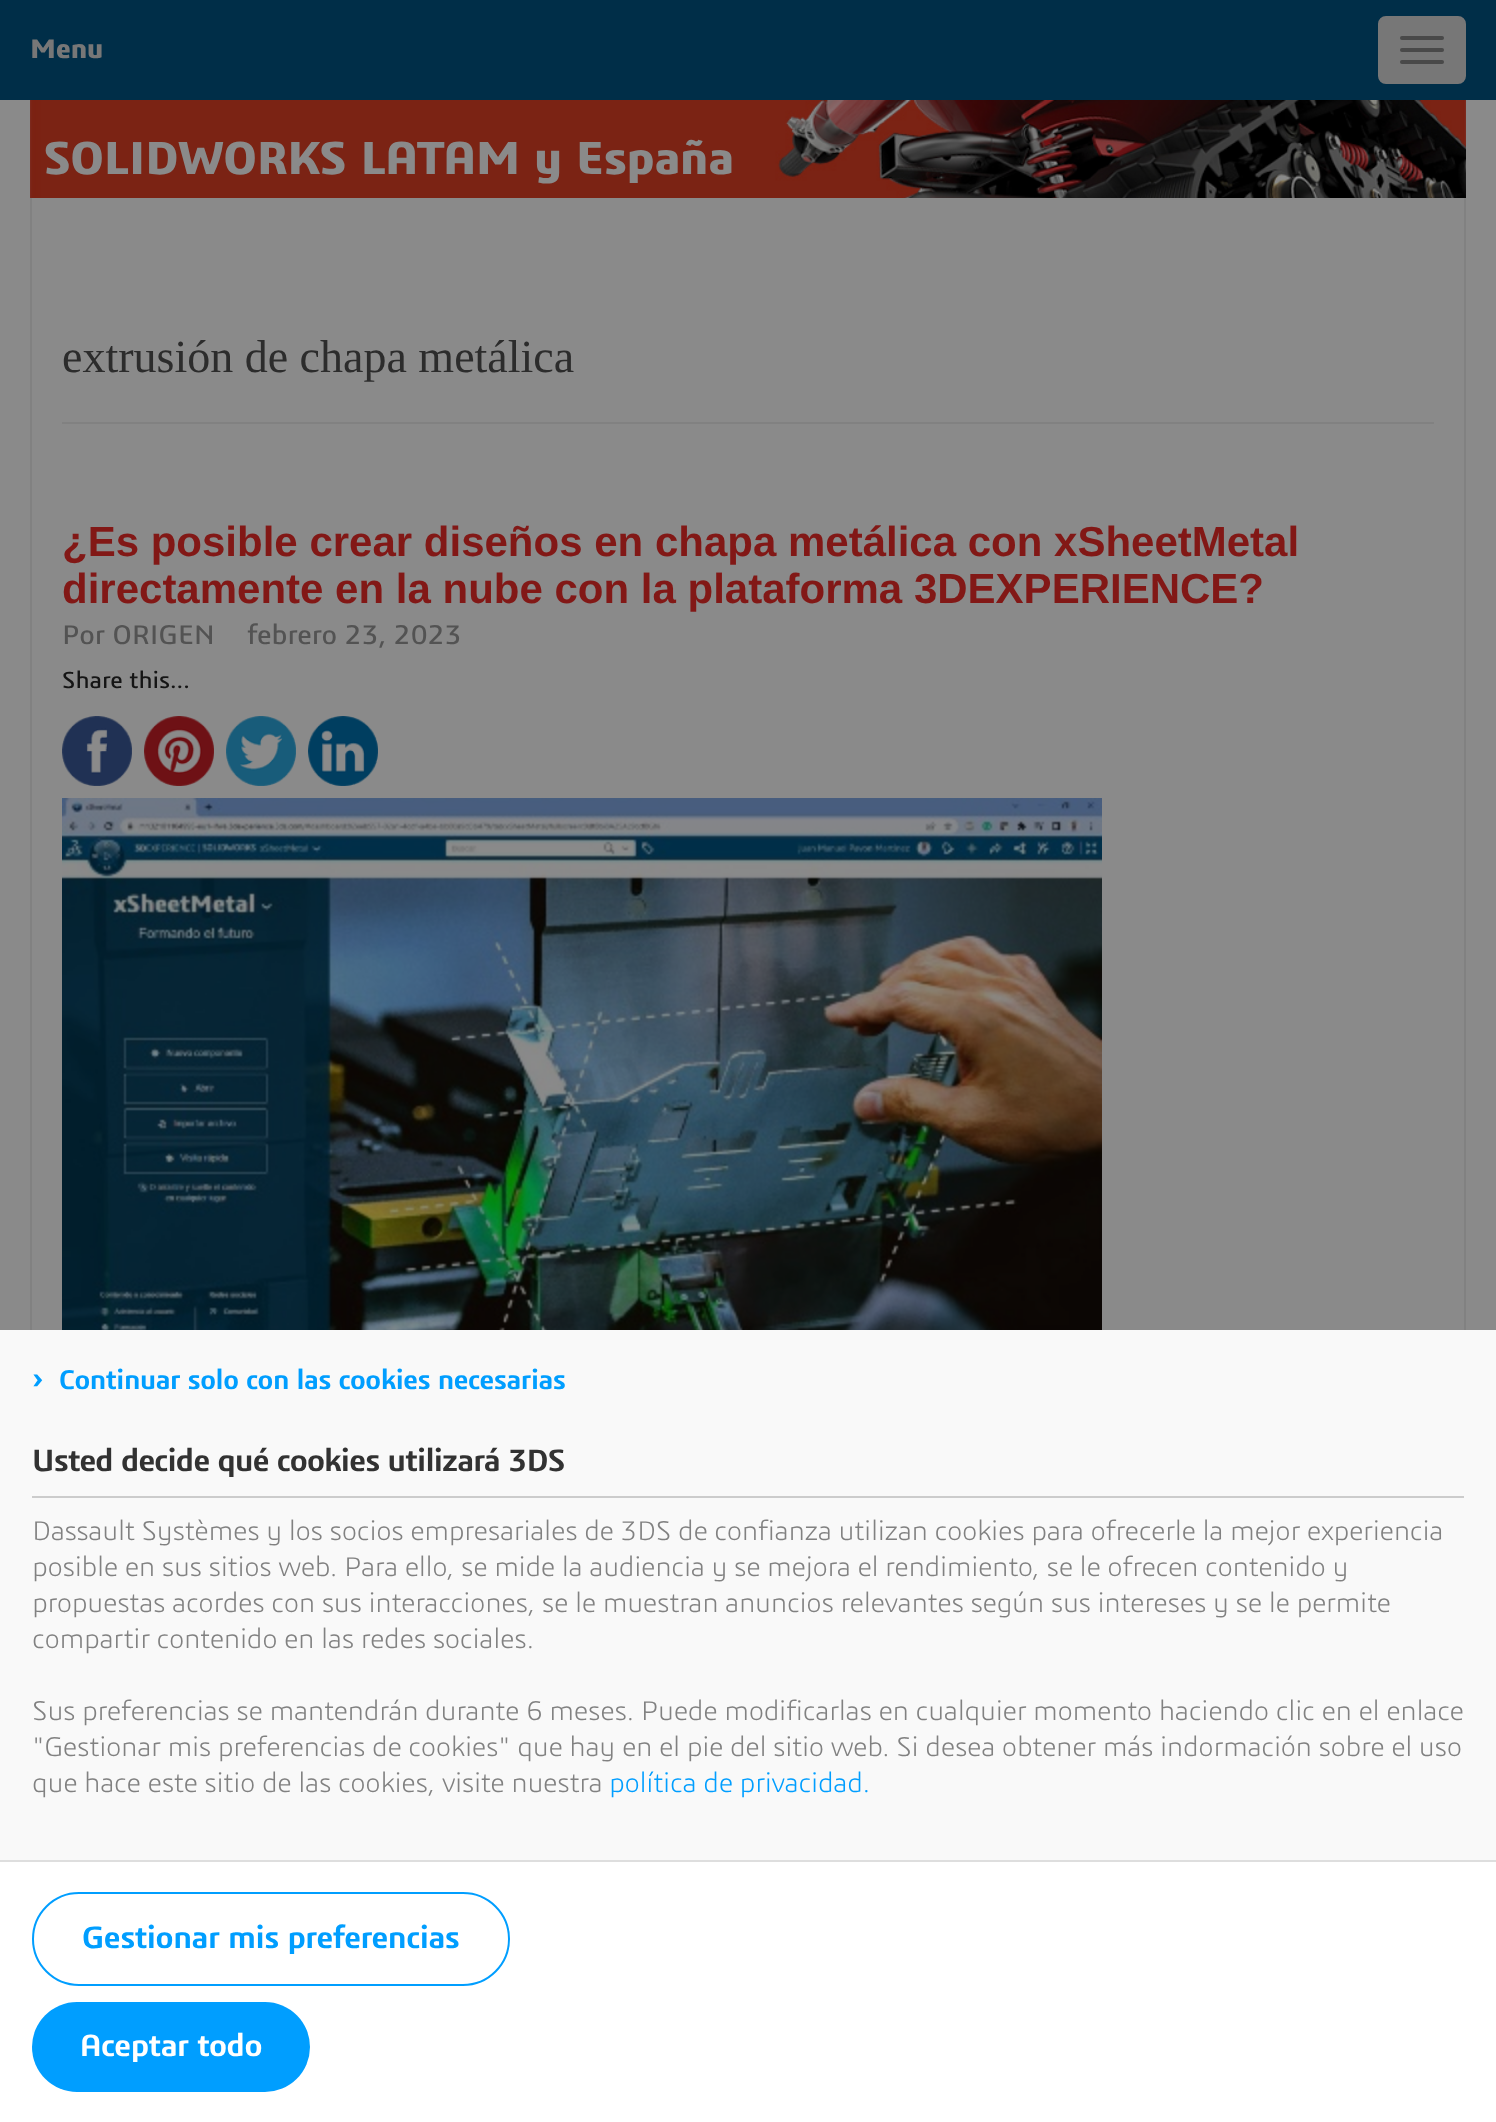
<svg xmlns="http://www.w3.org/2000/svg" width="1496" height="2122" viewBox="0 0 1496 2122">
  <rect width="100%" height="100%" fill="rgb(138,138,138)"/>
  <rect x="0" y="0" width="1496" height="100" fill="rgb(0,46,72)"/>
  <text x="30" y="58" font-family="'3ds'" font-size="28" font-weight="bold" fill="rgb(119,119,119)">Menu</text>
  <rect x="1379" y="17" width="86" height="66" rx="7" fill="rgb(119,119,119)" stroke="rgb(119,119,119)" stroke-width="2"/>
  <rect x="1400" y="36" width="44" height="4" rx="2" fill="rgb(73,73,73)"/>
  <rect x="1400" y="48" width="44" height="4" rx="2" fill="rgb(73,73,73)"/>
  <rect x="1400" y="60" width="44" height="4" rx="2" fill="rgb(73,73,73)"/>
  <image x="30" y="100" width="1436" height="98" href="pic1.png"/>
  <text x="44" y="174" font-family="'3ds'" font-size="48" font-weight="bold" fill="rgb(138,138,138)">SOLIDWORKS LATAM y España</text>
  <rect x="1464" y="198" width="2" height="1132" fill="rgb(129,129,129)"/>
  <rect x="30" y="198" width="2" height="1132" fill="rgb(129,129,129)"/>
  <rect x="62" y="422" width="1372" height="2" fill="rgb(129,129,129)"/>
  <text x="62" y="372" font-family="Liberation Serif" font-size="46" fill="rgb(44,44,44)">extrusión de chapa metálica</text>
  <g font-family="Liberation Sans" font-size="42" font-weight="bold" fill="rgb(130,24,22)">
    <text>
      <tspan x="62" y="556">¿Es posible crear diseños en chapa metálica con xSheetMetal</tspan>
      <tspan x="62" y="603">directamente en la nube con la plataforma 3DEXPERIENCE?</tspan>
    </text>
  </g>
  <g font-family="'3ds'" font-size="28" fill="rgb(83,83,83)">
    <text x="62" y="644">Por ORIGEN</text>
    <text x="247" y="644">febrero 23, 2023</text>
  </g>
  <text x="62" y="688" font-family="'3ds'" font-size="24" fill="rgb(21,21,21)">Share this...</text>
  <image x="62" y="716" width="70" height="70" href="pic2.png"/>
  <image x="144" y="716" width="70" height="70" href="pic3.png"/>
  <image x="226" y="716" width="70" height="70" href="pic4.png"/>
  <image x="308" y="716" width="70" height="70" href="pic5.png"/>
  <image x="62" y="798" width="1040" height="532" href="pic6.png"/>
  <rect x="0" y="1330" width="1496" height="530" fill="rgb(249,249,249)"/>
  <rect x="32" y="1496" width="1432" height="2" fill="rgb(204,204,204)"/>
  <text x="32" y="1389" font-family="'3ds'" font-size="32" font-weight="600" letter-spacing="-0.4" fill="rgb(0,158,255)">›</text>
  <text x="59" y="1389" font-family="'3ds'" font-size="28" font-weight="600" letter-spacing="-0.4" fill="rgb(0,158,255)">Continuar solo con las cookies necesarias</text>
  <text x="32" y="1471" font-family="'3ds'" font-size="32" font-weight="600" letter-spacing="-0.8" fill="rgb(50,50,50)">Usted decide qué cookies utilizará 3DS</text>
  <g font-family="'3ds'" font-size="28" font-weight="300" letter-spacing="-0.32" fill="rgb(129,129,129)">
    <text>
      <tspan x="32" y="1540">Dassault Systèmes y los socios empresariales de 3DS de confianza utilizan cookies para ofrecerle la mejor experiencia</tspan>
      <tspan x="32" y="1576">posible en sus sitios web. Para ello, se mide la audiencia y se mejora el rendimiento, se le ofrecen contenido y</tspan>
      <tspan x="32" y="1612">propuestas acordes con sus interacciones, se le muestran anuncios relevantes según sus intereses y se le permite</tspan>
      <tspan x="32" y="1648">compartir contenido en las redes sociales.</tspan>
    </text>
    <text>
      <tspan x="32" y="1720">Sus preferencias se mantendrán durante 6 meses. Puede modificarlas en cualquier momento haciendo clic en el enlace</tspan>
      <tspan x="32" y="1756">"Gestionar mis preferencias de cookies" que hay en el pie del sitio web. Si desea obtener más indormación sobre el uso</tspan>
      <tspan x="32" y="1792">que hace este sitio de las cookies, visite nuestra</tspan>
    </text>
  </g>
  <text x="609" y="1792" font-family="'3ds'" font-size="28" font-weight="300" letter-spacing="-0.32" fill="rgb(0,158,255)">política de privacidad.</text>
  <rect x="0" y="1862" width="1496" height="260" fill="rgb(255,255,255)"/>
  <rect x="0" y="1860" width="1496" height="2" fill="rgb(222,222,222)"/>
  <rect x="33" y="1893" width="476" height="92" rx="46" fill="none" stroke="rgb(0,158,255)" stroke-width="2"/>
  <text x="82" y="1948" font-family="'3ds'" font-size="32" font-weight="600" letter-spacing="-0.4" fill="rgb(0,158,255)">Gestionar mis preferencias</text>
  <rect x="32" y="2002" width="278" height="90" rx="45" fill="rgb(0,158,255)"/>
  <text x="80" y="2056" font-family="'3ds'" font-size="32" font-weight="600" letter-spacing="-0.4" fill="rgb(255,255,255)">Aceptar todo</text>
</svg>
